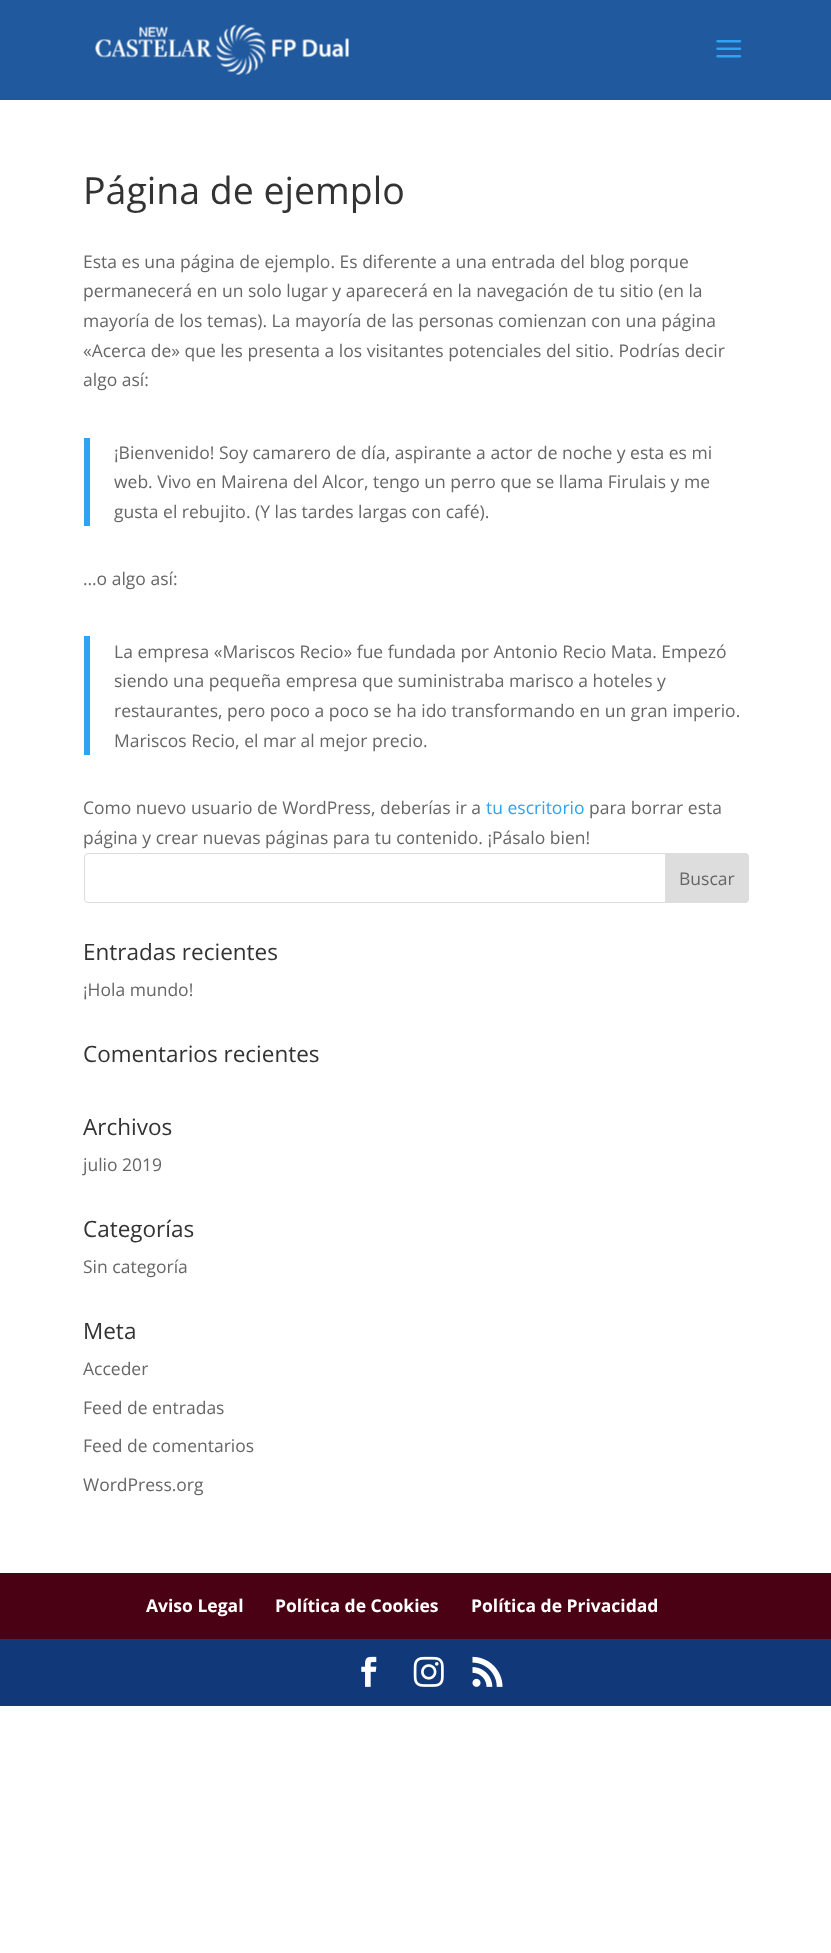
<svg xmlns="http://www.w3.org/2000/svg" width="831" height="1953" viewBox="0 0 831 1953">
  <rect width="100%" height="100%" fill="rgb(255,255,255)"/>
  <rect x="0" y="0" width="831" height="100" fill="rgb(32,89,158)"/>
  <image x="95" y="24" width="254" height="51" href="pic1.png"/>
  <image x="716" y="40" width="26" height="18" href="pic2.png"/>
  <text x="83" y="204" font-family="Open Sans" font-size="37.5" fill="rgb(51,51,51)">Página de ejemplo</text>
  <g font-family="Open Sans" font-size="17.5" fill="rgb(102,102,102)">
    <text>
      <tspan x="83" y="268">Esta es una página de ejemplo. Es diferente a una entrada del blog porque</tspan>
      <tspan x="83" y="297">permanecerá en un solo lugar y aparecerá en la navegación de tu sitio (en la</tspan>
      <tspan x="83" y="327">mayoría de los temas). La mayoría de las personas comienzan con una página</tspan>
      <tspan x="83" y="357">«Acerca de» que les presenta a los visitantes potenciales del sitio. Podrías decir</tspan>
      <tspan x="83" y="386">algo así:</tspan>
    </text>
  </g>
  <rect x="84" y="438" width="6" height="88" fill="rgb(46,163,242)"/>
  <g font-family="Open Sans" font-size="17.5" fill="rgb(102,102,102)">
    <text>
      <tspan x="114" y="459">¡Bienvenido! Soy camarero de día, aspirante a actor de noche y esta es mi</tspan>
      <tspan x="114" y="488">web. Vivo en Mairena del Alcor, tengo un perro que se llama Firulais y me</tspan>
      <tspan x="114" y="518">gusta el rebujito. (Y las tardes largas con café).</tspan>
    </text>
    <text x="83" y="585">…o algo así:</text>
  </g>
  <rect x="84" y="636" width="6" height="119" fill="rgb(46,163,242)"/>
  <g font-family="Open Sans" font-size="17.5" fill="rgb(102,102,102)">
    <text>
      <tspan x="114" y="658">La empresa «Mariscos Recio» fue fundada por Antonio Recio Mata. Empezó</tspan>
      <tspan x="114" y="687">siendo una pequeña empresa que suministraba marisco a hoteles y</tspan>
      <tspan x="114" y="717">restaurantes, pero poco a poco se ha ido transformando en un gran imperio.</tspan>
      <tspan x="114" y="747">Mariscos Recio, el mar al mejor precio.</tspan>
    </text>
    <text x="83" y="814">Como nuevo usuario de WordPress, deberías ir a</text>
  </g>
  <text x="486" y="814" font-family="Open Sans" font-size="17.5" fill="rgb(46,163,242)">tu escritorio</text>
  <g font-family="Open Sans" font-size="17.5" fill="rgb(102,102,102)">
    <text x="589" y="814">para borrar esta</text>
    <text x="83" y="844">página y crear nuevas páginas para tu contenido. ¡Pásalo bien!</text>
  </g>
  <rect x="84.5" y="853.5" width="664" height="49" rx="3.5" fill="none" stroke="rgb(221,221,221)"/>
  <path d="M665.5 853.5H745C747 853.5 748.5 855 748.5 857V899C748.5 901 747 902.5 745 902.5H665.5Z" fill="rgb(221,221,221)" stroke="rgb(221,221,221)"/>
  <text x="679" y="885" font-family="Open Sans" font-size="17.5" fill="rgb(102,102,102)">Buscar</text>
  <text x="83" y="960" font-family="Open Sans" font-size="22.5" fill="rgb(51,51,51)">Entradas recientes</text>
  <text x="83" y="996" font-family="Open Sans" font-size="17.5" fill="rgb(102,102,102)">¡Hola mundo!</text>
  <g font-family="Open Sans" font-size="22.5" fill="rgb(51,51,51)">
    <text x="83" y="1062">Comentarios recientes</text>
    <text x="83" y="1135">Archivos</text>
  </g>
  <text x="83" y="1171" font-family="Open Sans" font-size="17.5" fill="rgb(102,102,102)">julio 2019</text>
  <text x="83" y="1237" font-family="Open Sans" font-size="22.5" fill="rgb(51,51,51)">Categorías</text>
  <text x="83" y="1273" font-family="Open Sans" font-size="17.5" fill="rgb(102,102,102)">Sin categoría</text>
  <text x="83" y="1339" font-family="Open Sans" font-size="22.5" fill="rgb(51,51,51)">Meta</text>
  <g font-family="Open Sans" font-size="17.5" fill="rgb(102,102,102)">
    <text x="83" y="1375">Acceder</text>
    <text x="83" y="1414">Feed de entradas</text>
    <text x="83" y="1452">Feed de comentarios</text>
    <text x="83" y="1491">WordPress.org</text>
  </g>
  <rect x="0" y="1573" width="831" height="66" fill="rgb(75,1,20)"/>
  <g font-family="Open Sans" font-size="17.5" font-weight="bold" fill="rgb(255,255,255)">
    <text x="146" y="1612">Aviso Legal</text>
    <text x="275" y="1612">Política de Cookies</text>
    <text x="471" y="1612">Política de Privacidad</text>
  </g>
  <rect x="0" y="1639" width="831" height="67" fill="rgb(17,56,120)"/>
  <image x="361" y="1656" width="16" height="31" href="pic3.png"/>
  <image x="413" y="1656" width="31" height="31" href="pic4.png"/>
  <image x="472" y="1656" width="31" height="31" href="pic5.png"/>
</svg>
